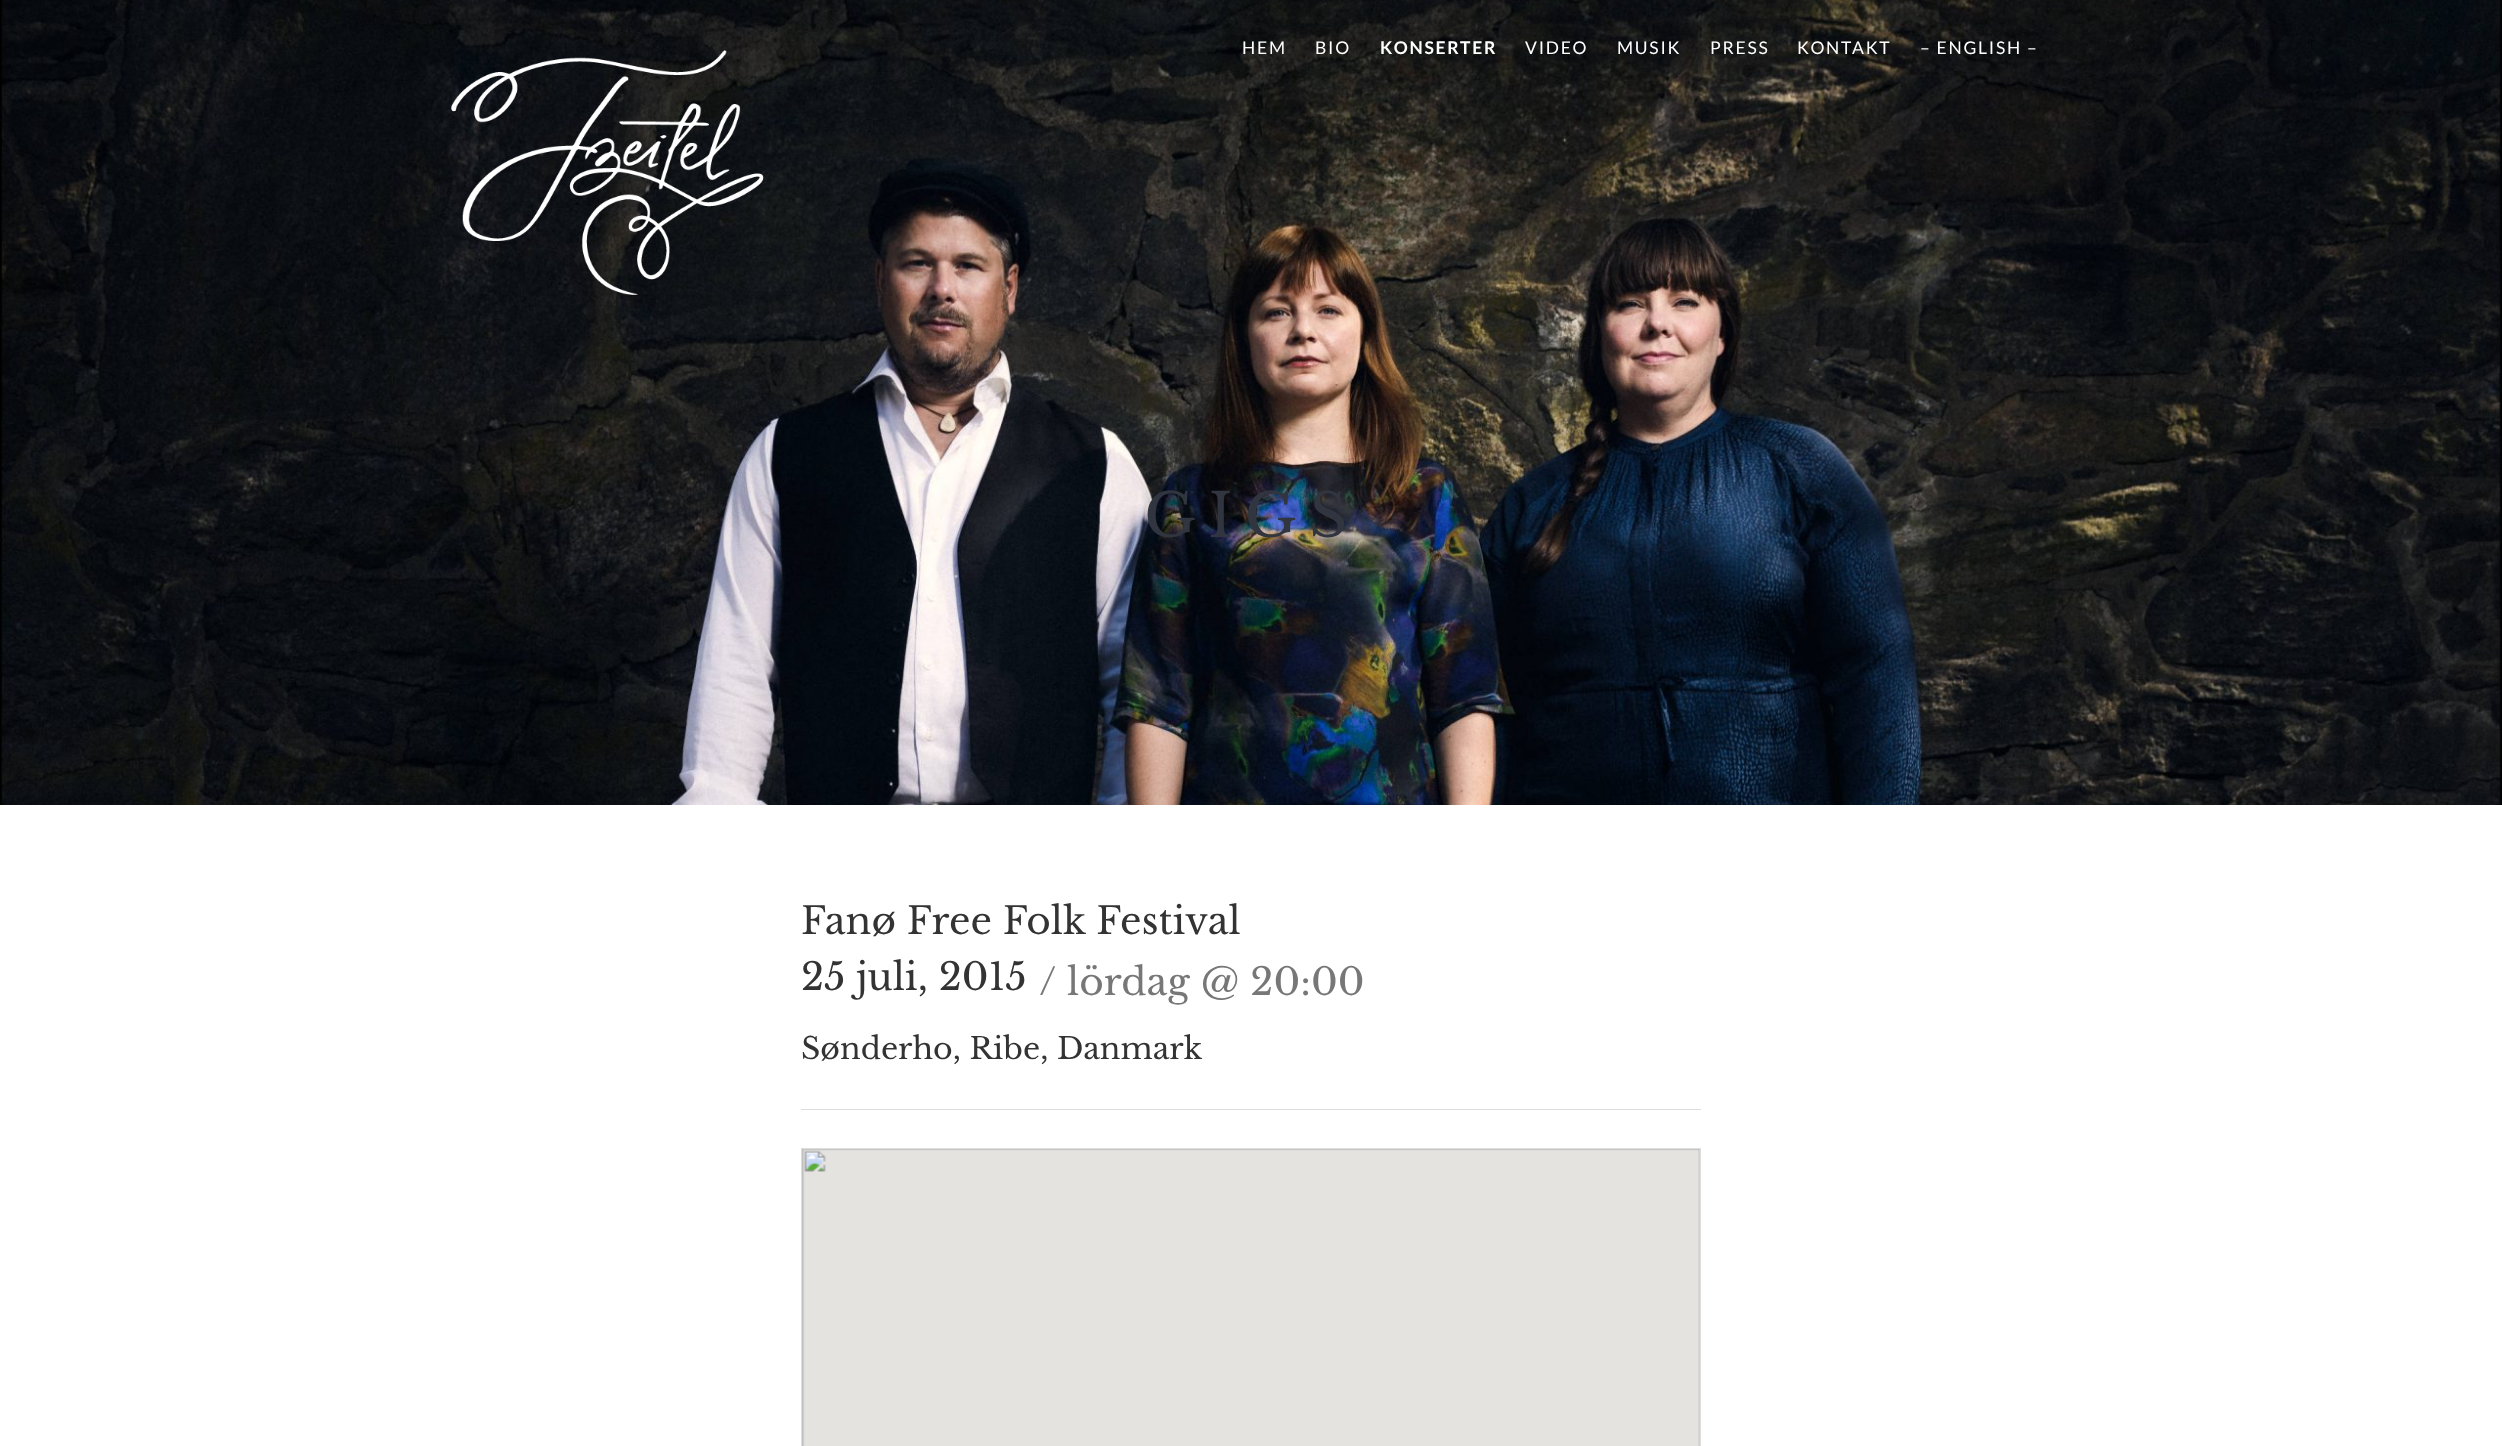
<svg xmlns="http://www.w3.org/2000/svg" width="2502" height="1446" viewBox="0 0 2502 1446">
  <rect width="100%" height="100%" fill="rgb(255,255,255)"/>
  <image x="0" y="0" width="2502" height="805" href="pic1.png"/>
  <g font-family="Lato" font-size="17.5" letter-spacing="1.75" fill="rgb(255,255,255)">
    <text x="1242" y="54">HEM</text>
    <text x="1315" y="54">BIO</text>
  </g>
  <text x="1380" y="54" font-family="Lato" font-size="17.5" font-weight="bold" letter-spacing="1.75" fill="rgb(255,255,255)">KONSERTER</text>
  <g font-family="Lato" font-size="17.5" letter-spacing="1.75" fill="rgb(255,255,255)">
    <text x="1525" y="54">VIDEO</text>
    <text x="1617" y="54">MUSIK</text>
    <text x="1710" y="54">PRESS</text>
    <text x="1797" y="54">KONTAKT</text>
    <text x="1920" y="54">– ENGLISH –</text>
  </g>
  <image x="451" y="50" width="313" height="245" href="pic2.png"/>
  <text x="1144" y="537" font-family="Libre Baskerville" font-size="60" letter-spacing="12" fill="rgb(49,53,64)">GIGS</text>
  <g font-family="Libre Baskerville" font-size="37.5" fill="rgb(51,51,51)">
    <text>
      <tspan x="801" y="934">Fanø Free Folk Festival</tspan>
      <tspan x="801" y="990">25 juli, 2015</tspan>
    </text>
  </g>
  <g font-family="Libre Baskerville" font-size="37.5" fill="rgb(119,119,119)">
    <text x="1039" y="995">/ lördag</text>
    <text x="1201" y="995">@ 20:00</text>
  </g>
  <text x="801" y="1059" font-family="Libre Baskerville" font-size="30" fill="rgb(51,51,51)">Sønderho, Ribe, Danmark</text>
  <rect x="801" y="1109" width="900" height="1" fill="rgb(221,221,221)"/>
  <rect x="801.5" y="1148.5" width="899" height="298" fill="none" stroke="rgb(221,221,221)"/>
  <image x="802" y="1149" width="898" height="297" href="pic3.png"/>
</svg>
